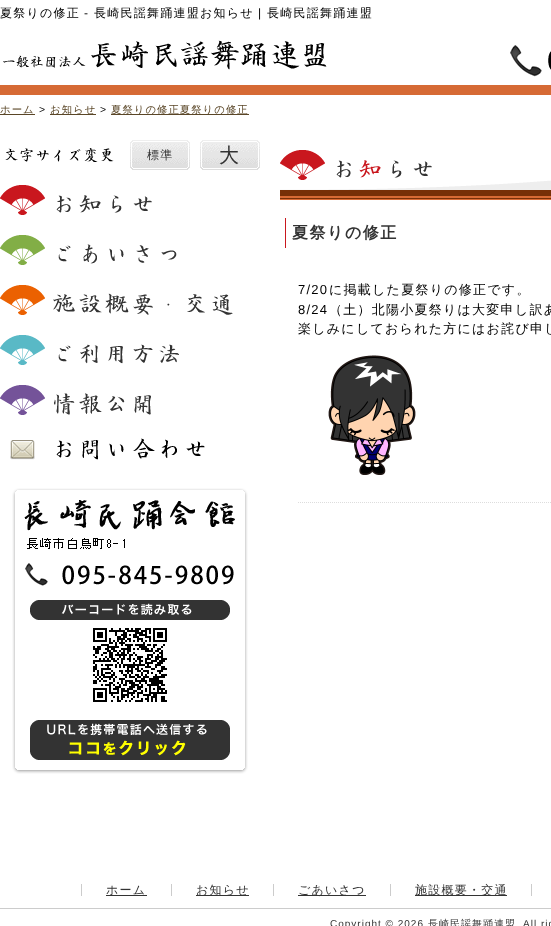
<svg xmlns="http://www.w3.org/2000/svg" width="551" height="926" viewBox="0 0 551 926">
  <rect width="100%" height="100%" fill="rgb(255,255,255)"/>
  <text x="0" y="17" font-family="WenQuanYi Zen Hei" font-size="12" font-weight="500" letter-spacing="1.25" fill="rgb(0,0,0)">夏祭りの修正</text>
  <text x="84" y="17" font-family="Liberation Sans" font-size="12" letter-spacing="1.25" fill="rgb(0,0,0)">-</text>
  <text x="94" y="17" font-family="WenQuanYi Zen Hei" font-size="12" font-weight="500" letter-spacing="1.25" fill="rgb(0,0,0)">長崎民謡舞踊連盟お知らせ</text>
  <text x="258" y="17" font-family="Liberation Sans" font-size="12" letter-spacing="1.25" fill="rgb(0,0,0)">|</text>
  <text x="267" y="17" font-family="WenQuanYi Zen Hei" font-size="12" font-weight="500" letter-spacing="1.25" fill="rgb(0,0,0)">長崎民謡舞踊連盟</text>
  <image x="0" y="45" width="551" height="50" href="pic1.png"/>
  <image x="3" y="40" width="324" height="30" href="pic2.png"/>
  <rect x="0" y="114" width="35" height="1" fill="rgb(90,70,39)"/>
  <text x="0" y="113" font-family="WenQuanYi Zen Hei" font-size="10.4" font-weight="500" letter-spacing="1" fill="rgb(90,70,39)">ホーム</text>
  <text x="39" y="113" font-family="Liberation Sans" font-size="10.4" letter-spacing="1" fill="rgb(0,0,0)">&gt;</text>
  <rect x="50" y="114" width="46" height="1" fill="rgb(90,70,39)"/>
  <text x="50" y="113" font-family="WenQuanYi Zen Hei" font-size="10.4" font-weight="500" letter-spacing="1" fill="rgb(90,70,39)">お知らせ</text>
  <text x="100" y="113" font-family="Liberation Sans" font-size="10.4" letter-spacing="1" fill="rgb(0,0,0)">&gt;</text>
  <rect x="111" y="114" width="138" height="1" fill="rgb(90,70,39)"/>
  <text x="111" y="113" font-family="WenQuanYi Zen Hei" font-size="10.4" font-weight="500" letter-spacing="1" fill="rgb(90,70,39)">夏祭りの修正夏祭りの修正</text>
  <image x="5" y="140" width="255" height="30" href="pic3.png"/>
  <image x="130" y="144" width="60" height="20" href="pic4.png"/>
  <text x="147" y="159" font-family="WenQuanYi Zen Hei" font-size="12" font-weight="500" letter-spacing="1.25" fill="rgb(51,51,51)">標準</text>
  <image x="200" y="144" width="60" height="20" href="pic4.png"/>
  <text x="219" y="162" font-family="WenQuanYi Zen Hei" font-size="20" font-weight="500" letter-spacing="2" fill="rgb(51,51,51)">大</text>
  <image x="0" y="185" width="152" height="30" href="pic5.png"/>
  <image x="0" y="235" width="177" height="30" href="pic6.png"/>
  <image x="0" y="285" width="233" height="30" href="pic7.png"/>
  <image x="0" y="335" width="179" height="30" href="pic8.png"/>
  <image x="0" y="385" width="151" height="30" href="pic9.png"/>
  <image x="10" y="438" width="195" height="22" href="pic10.png"/>
  <image x="12" y="488" width="236" height="286" href="pic11.png"/>
  <image x="280" y="150" width="271" height="50" href="pic12.png"/>
  <rect x="285" y="218" width="1" height="30" fill="rgb(201,23,30)"/>
  <text x="292" y="238" font-family="WenQuanYi Zen Hei" font-size="16" font-weight="bold" letter-spacing="1.5" fill="rgb(51,51,51)">夏祭りの修正</text>
  <path d="M298 502.5H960" fill="none" stroke="rgb(221,221,221)" stroke-dasharray="1 1"/>
  <text x="298" y="294" font-family="Liberation Sans" font-size="13" letter-spacing="1.25" fill="rgb(0,0,0)">7/20</text>
  <text x="329" y="294" font-family="WenQuanYi Zen Hei" font-size="13" font-weight="500" letter-spacing="1.25" fill="rgb(0,0,0)">に掲載した夏祭りの修正です。</text>
  <text x="298" y="314" font-family="Liberation Sans" font-size="13" letter-spacing="1.25" fill="rgb(0,0,0)">8/24</text>
  <g font-family="WenQuanYi Zen Hei" font-size="13" font-weight="500" letter-spacing="1.25" fill="rgb(0,0,0)">
    <text x="329" y="314">（土）北陽小夏祭りは大変申し訳あ</text>
    <text x="298" y="333">楽しみにしておられた方にはお詫び申し</text>
  </g>
  <image x="328" y="355" width="88" height="120" href="pic13.png"/>
  <rect x="171" y="884" width="1" height="12" fill="rgb(204,204,204)"/>
  <rect x="81" y="884" width="1" height="12" fill="rgb(204,204,204)"/>
  <rect x="106" y="895" width="41" height="1" fill="rgb(51,51,51)"/>
  <text x="106" y="894" font-family="WenQuanYi Zen Hei" font-size="12" font-weight="500" letter-spacing="1.25" fill="rgb(51,51,51)">ホーム</text>
  <rect x="273" y="884" width="1" height="12" fill="rgb(204,204,204)"/>
  <rect x="196" y="895" width="53" height="1" fill="rgb(51,51,51)"/>
  <text x="196" y="894" font-family="WenQuanYi Zen Hei" font-size="12" font-weight="500" letter-spacing="1.25" fill="rgb(51,51,51)">お知らせ</text>
  <rect x="390" y="884" width="1" height="12" fill="rgb(204,204,204)"/>
  <rect x="298" y="895" width="68" height="1" fill="rgb(51,51,51)"/>
  <text x="298" y="894" font-family="WenQuanYi Zen Hei" font-size="12" font-weight="500" letter-spacing="1.25" fill="rgb(51,51,51)">ごあいさつ</text>
  <rect x="531" y="884" width="1" height="12" fill="rgb(204,204,204)"/>
  <rect x="415" y="895" width="92" height="1" fill="rgb(51,51,51)"/>
  <text x="415" y="894" font-family="WenQuanYi Zen Hei" font-size="12" font-weight="500" letter-spacing="1.25" fill="rgb(51,51,51)">施設概要・交通</text>
  <rect x="0" y="908" width="551" height="1" fill="rgb(204,204,204)"/>
  <text x="330" y="927" font-family="Liberation Sans" font-size="10" letter-spacing="1" fill="rgb(51,51,51)">Copyright © 2026</text>
  <text x="428" y="927" font-family="WenQuanYi Zen Hei" font-size="10" font-weight="500" letter-spacing="1" fill="rgb(51,51,51)">長崎民謡舞踊連盟</text>
  <text x="523" y="927" font-family="Liberation Sans" font-size="10" letter-spacing="1" fill="rgb(51,51,51)">All rig</text>
</svg>
